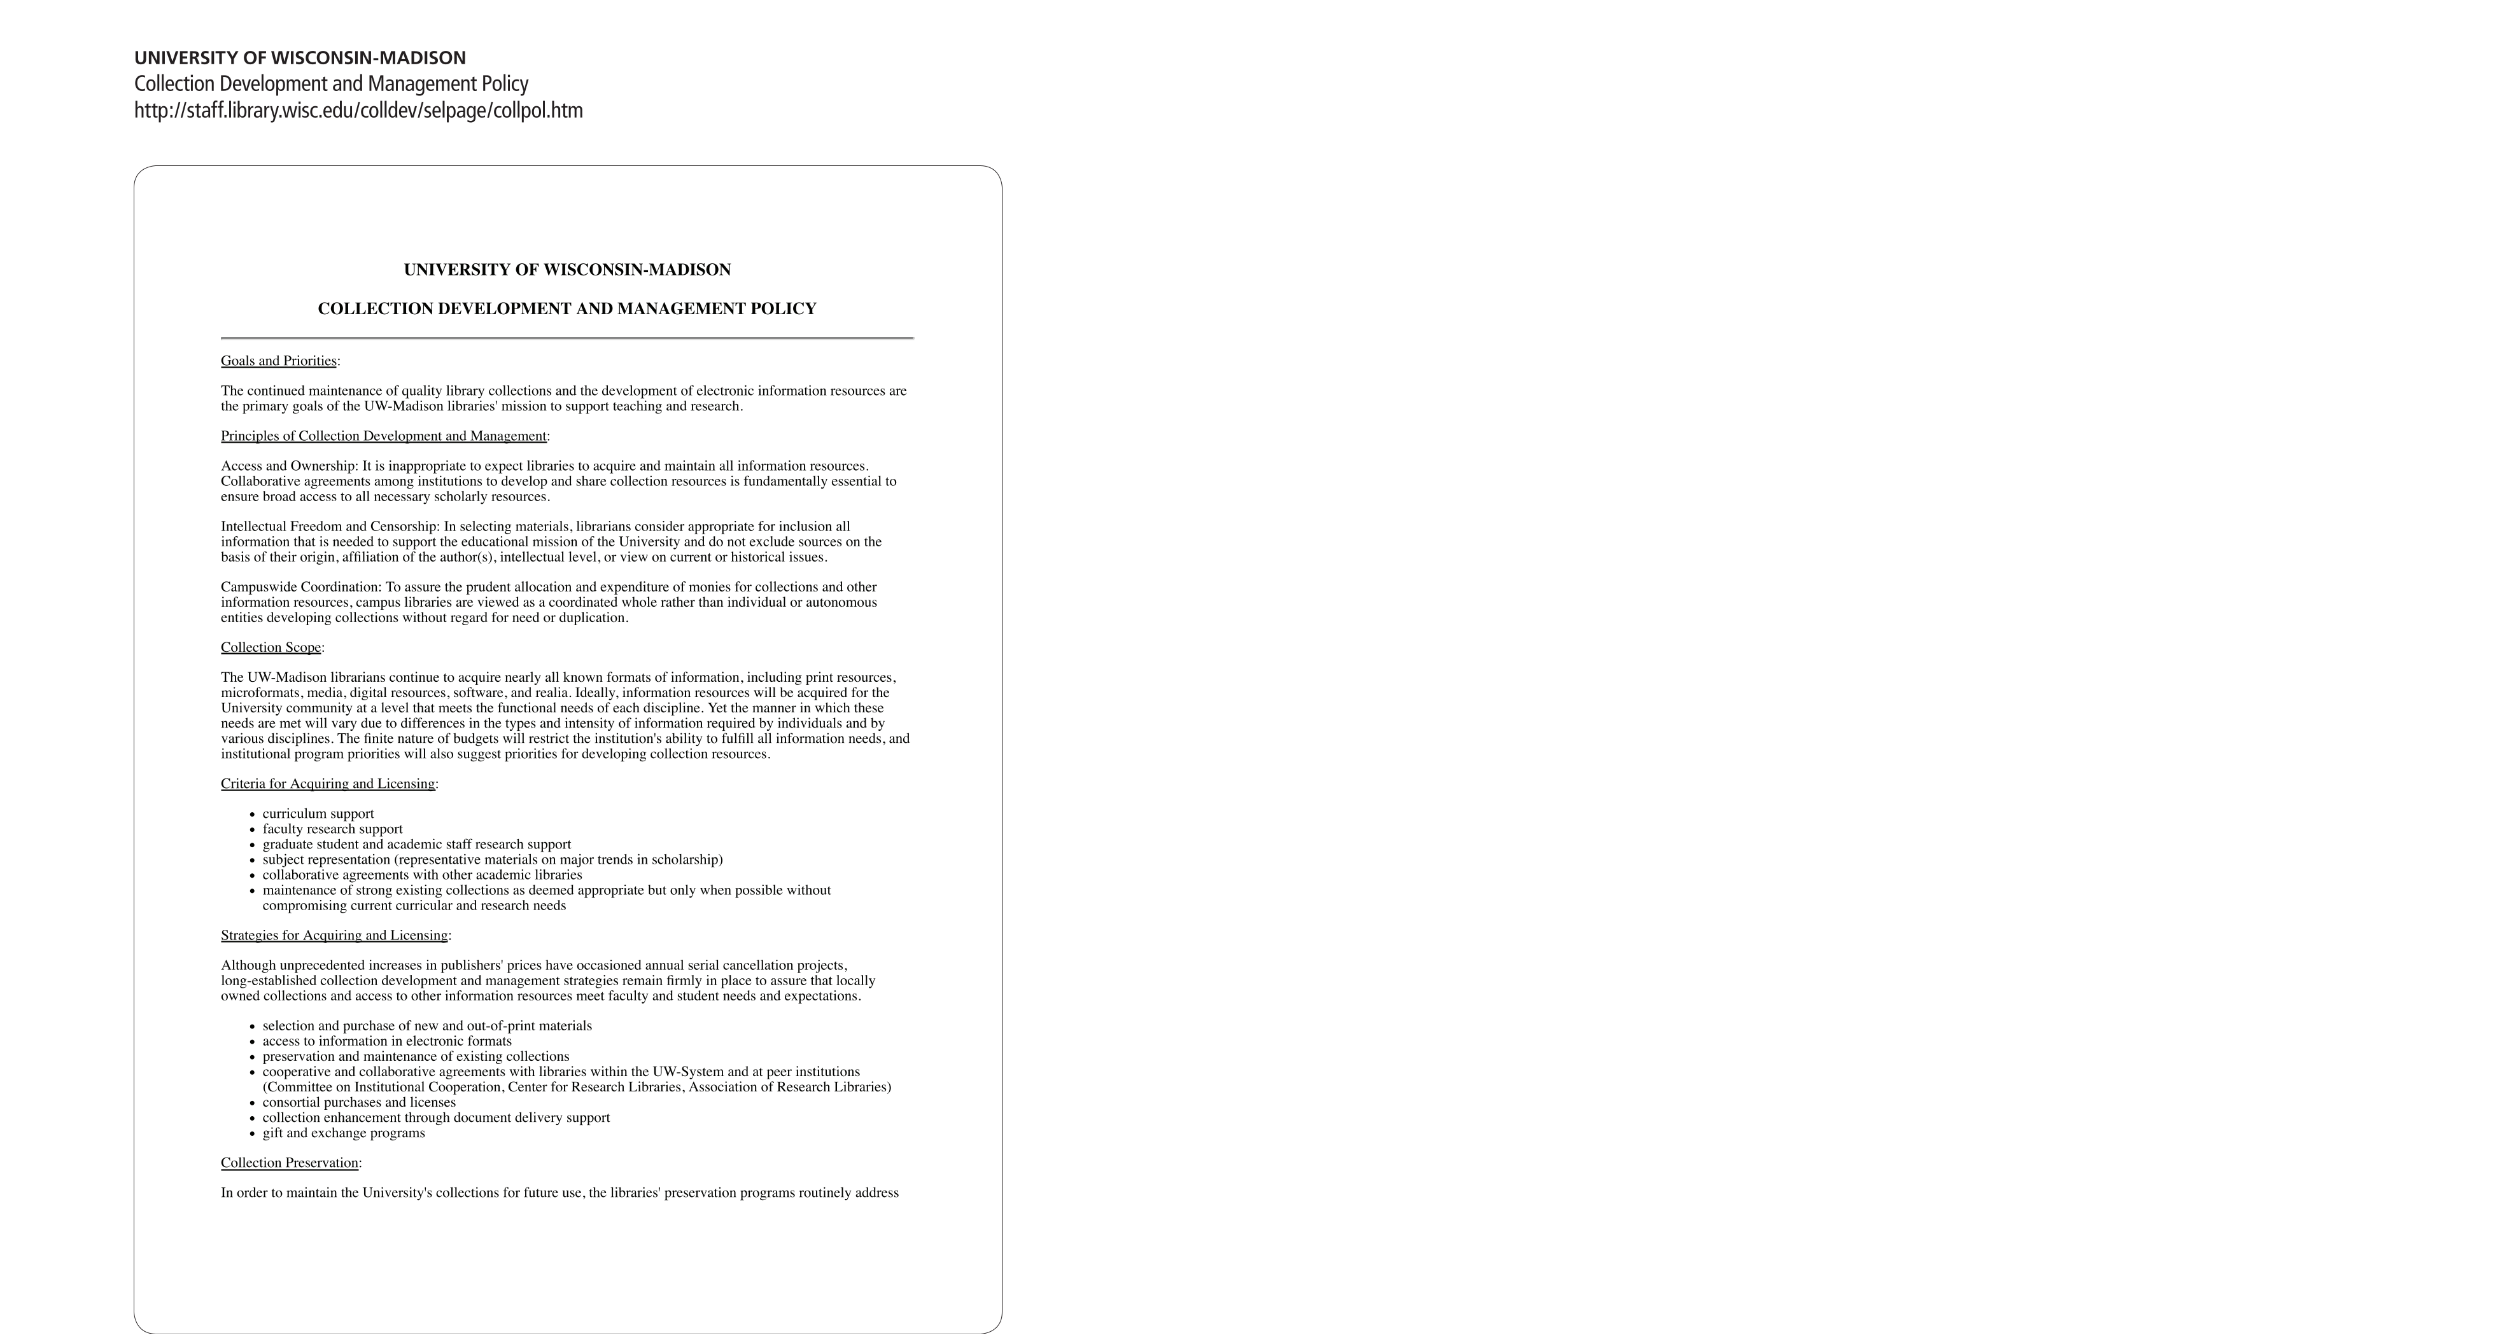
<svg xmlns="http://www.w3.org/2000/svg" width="2513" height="1334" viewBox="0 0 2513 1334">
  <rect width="100%" height="100%" fill="rgb(255,255,255)"/>
  <image x="133" y="51" width="870" height="1283" href="pic1.png"/>
</svg>
